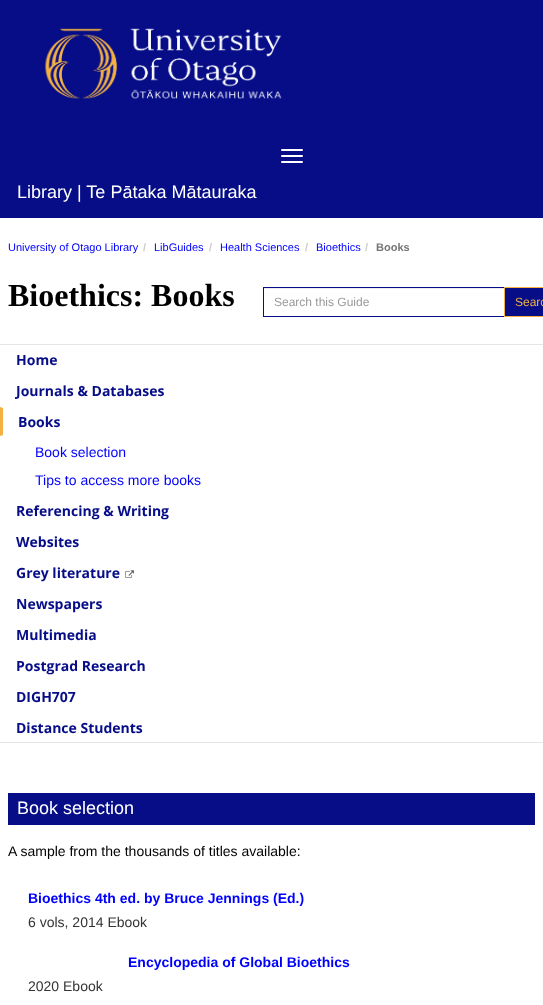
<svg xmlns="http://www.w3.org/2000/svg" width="543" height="1005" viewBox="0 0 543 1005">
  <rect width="100%" height="100%" fill="rgb(255,255,255)"/>
  <rect x="0" y="0" width="543" height="218" fill="rgb(6,13,135)"/>
  <image x="45" y="28" width="237" height="71" href="pic1.png"/>
  <rect x="281" y="149" width="22" height="2" rx="1" fill="rgb(255,255,255)"/>
  <rect x="281" y="155" width="22" height="2" rx="1" fill="rgb(255,255,255)"/>
  <rect x="281" y="161" width="22" height="2" rx="1" fill="rgb(255,255,255)"/>
  <text x="17" y="198" font-family="Liberation Sans" font-size="18" fill="rgb(255,255,255)">Library | Te Pātaka Mātauraka</text>
  <text x="8" y="251" font-family="Liberation Sans" font-size="11" fill="rgb(0,0,255)">University of Otago Library</text>
  <text x="143" y="251" font-family="Liberation Sans" font-size="11" font-weight="bold" fill="rgb(204,204,204)">/</text>
  <text x="154" y="251" font-family="Liberation Sans" font-size="11" fill="rgb(0,0,255)">LibGuides</text>
  <text x="209" y="251" font-family="Liberation Sans" font-size="11" font-weight="bold" fill="rgb(204,204,204)">/</text>
  <text x="220" y="251" font-family="Liberation Sans" font-size="11" fill="rgb(0,0,255)">Health Sciences</text>
  <text x="305" y="251" font-family="Liberation Sans" font-size="11" font-weight="bold" fill="rgb(204,204,204)">/</text>
  <text x="316" y="251" font-family="Liberation Sans" font-size="11" fill="rgb(0,0,255)">Bioethics</text>
  <text x="365" y="251" font-family="Liberation Sans" font-size="11" font-weight="bold" fill="rgb(204,204,204)">/</text>
  <text x="376" y="251" font-family="Liberation Sans" font-size="11" font-weight="bold" fill="rgb(118,118,118)">Books</text>
  <text x="8" y="306" font-family="Liberation Serif" font-size="32" font-weight="bold" fill="rgb(0,0,0)">Bioethics: Books</text>
  <rect x="264" y="288" width="240" height="1" fill="rgb(236,236,236)"/>
  <rect x="263.5" y="287.5" width="241" height="29" fill="none" stroke="rgb(6,13,135)"/>
  <text x="274" y="306" font-family="Liberation Sans" font-size="12" fill="rgb(153,153,153)">Search this Guide</text>
  <rect x="504.5" y="287.5" width="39" height="29" fill="rgb(6,13,135)" stroke="rgb(244,177,66)"/>
  <text x="515" y="306" font-family="Liberation Sans" font-size="12" fill="rgb(244,177,66)">Searc</text>
  <rect x="0" y="344" width="543" height="1" fill="rgb(229,229,229)"/>
  <rect x="0" y="742" width="543" height="1" fill="rgb(229,229,229)"/>
  <g font-family="Open Sans" font-size="14" font-weight="bold" fill="rgb(6,13,135)">
    <text x="16" y="365">Home</text>
    <text x="16" y="396">Journals &amp; Databases</text>
  </g>
  <path d="M0 436V407L3 408V435Z" fill="rgb(244,177,66)"/>
  <text x="18" y="427" font-family="Open Sans" font-size="14" font-weight="bold" fill="rgb(6,13,135)">Books</text>
  <g font-family="Liberation Sans" font-size="14" fill="rgb(0,0,255)">
    <text x="35" y="457">Book selection</text>
    <text x="35" y="485">Tips to access more books</text>
  </g>
  <g font-family="Open Sans" font-size="14" font-weight="bold" fill="rgb(6,13,135)">
    <text x="16" y="516">Referencing &amp; Writing</text>
    <text x="16" y="547">Websites</text>
    <text x="16" y="578">Grey literature</text>
  </g>
  <image x="125" y="570" width="9" height="8" href="pic2.png"/>
  <g font-family="Open Sans" font-size="14" font-weight="bold" fill="rgb(6,13,135)">
    <text x="16" y="609">Newspapers</text>
    <text x="16" y="640">Multimedia</text>
    <text x="16" y="671">Postgrad Research</text>
    <text x="16" y="702">DIGH707</text>
    <text x="16" y="733">Distance Students</text>
  </g>
  <rect x="8" y="793" width="527" height="32" fill="rgb(6,13,135)"/>
  <text x="17" y="814" font-family="Liberation Sans" font-size="18" fill="rgb(255,255,255)">Book selection</text>
  <text x="8" y="856" font-family="Liberation Sans" font-size="14" fill="rgb(0,0,0)">A sample from the thousands of titles available:</text>
  <text x="28" y="903" font-family="Liberation Sans" font-size="14" font-weight="bold" fill="rgb(0,0,255)">Bioethics 4th ed. by Bruce Jennings (Ed.)</text>
  <text x="28" y="927" font-family="Liberation Sans" font-size="14" fill="rgb(51,51,51)">6 vols, 2014 Ebook</text>
  <text x="128" y="967" font-family="Liberation Sans" font-size="14" font-weight="bold" fill="rgb(0,0,255)">Encyclopedia of Global Bioethics</text>
  <text x="28" y="991" font-family="Liberation Sans" font-size="14" fill="rgb(51,51,51)">2020 Ebook</text>
</svg>
